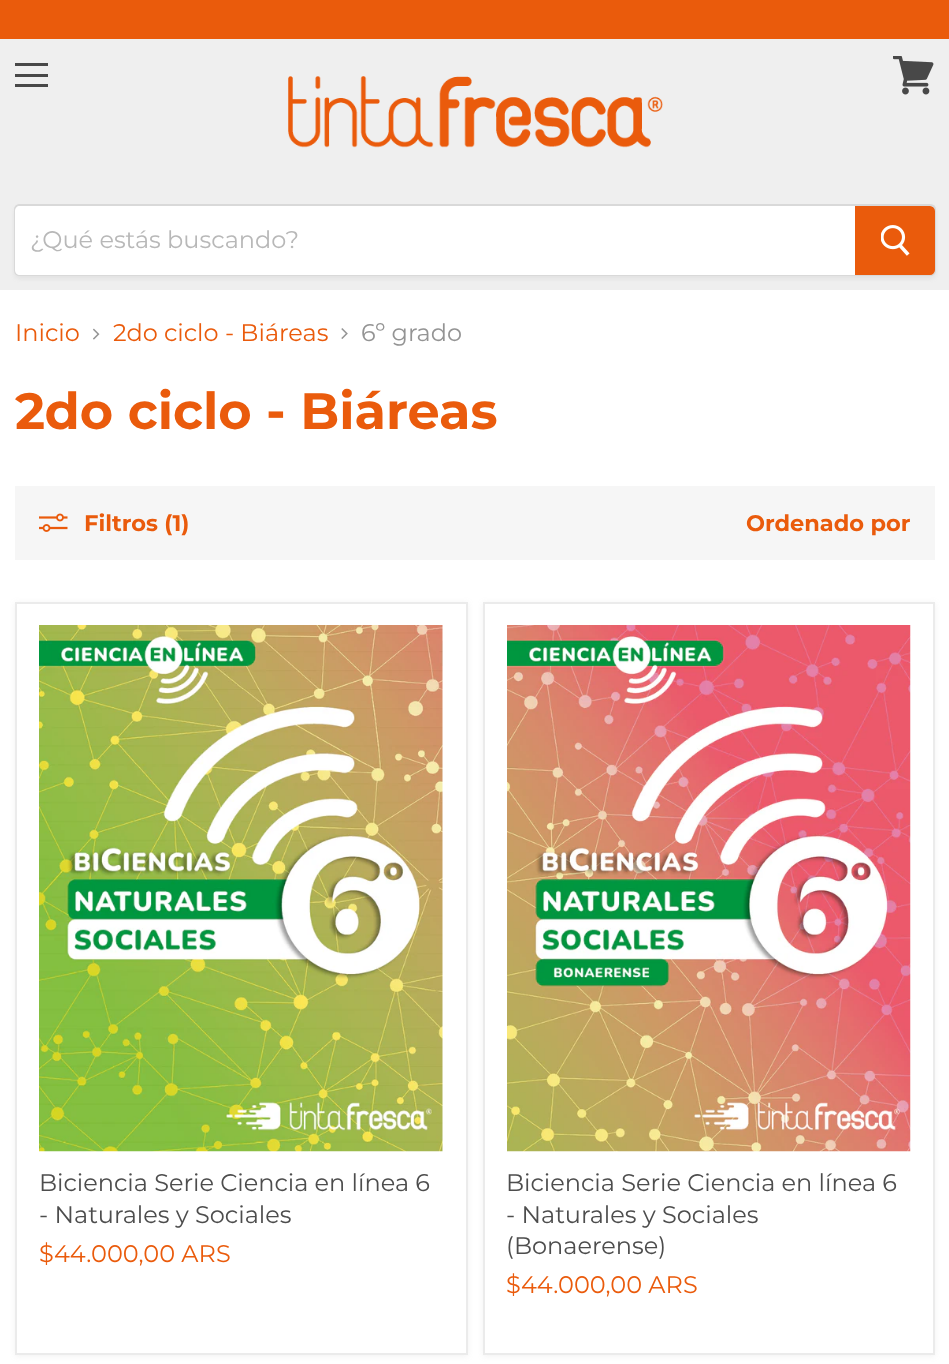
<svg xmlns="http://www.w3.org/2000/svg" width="949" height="1364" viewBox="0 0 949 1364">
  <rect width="100%" height="100%" fill="rgb(255,255,255)"/>
  <rect x="0" y="0" width="949" height="39" fill="rgb(234,91,12)"/>
  <rect x="0" y="39" width="949" height="251" fill="rgb(239,239,239)"/>
  <rect x="15" y="63" width="33" height="3" fill="rgb(72,72,72)"/>
  <rect x="15" y="74" width="33" height="3" fill="rgb(72,72,72)"/>
  <rect x="15" y="84" width="33" height="3" fill="rgb(72,72,72)"/>
  <image x="893" y="56" width="41" height="39" href="pic1.png"/>
  <image x="288" y="76" width="375" height="72" href="pic2.png"/>
  <rect x="14" y="207" width="922" height="72" rx="6" fill="rgba(127,127,127,0.11)" filter="blur(2px)"/>
  <path d="M19 205H930C933 205 935 207 935 210V270C935 273 933 275 930 275H19C17 275 15 273 15 271V209C15 207 17 205 19 205Z" fill="none" stroke="rgb(217,217,217)" stroke-width="2"/>
  <path d="M20 206H855V275H20C17 275 15 273 15 270V211C15 208 17 206 20 206Z" fill="rgb(255,255,255)"/>
  <text x="30" y="248" font-family="Montserrat" font-size="24" fill="rgb(184,184,184)">¿Qué estás buscando?</text>
  <path d="M856 207H930C932 207 934 209 934 211V270C934 272 932 274 930 274H856Z" fill="rgb(234,91,12)" stroke="rgb(234,91,12)" stroke-width="2"/>
  <image x="881" y="225" width="29" height="31" href="pic3.png"/>
  <text x="15" y="341" font-family="Montserrat" font-size="24" fill="rgb(234,91,12)">Inicio</text>
  <image x="93" y="328" width="7" height="12" href="pic4.png"/>
  <text x="113" y="341" font-family="Montserrat" font-size="24" fill="rgb(234,91,12)">2do ciclo - Biáreas</text>
  <image x="341" y="328" width="7" height="11" href="pic5.png"/>
  <text x="361" y="341" font-family="Montserrat" font-size="24" fill="rgb(148,148,148)">6º grado</text>
  <text x="15" y="429" font-family="Montserrat" font-size="51" font-weight="bold" fill="rgb(234,91,12)">2do ciclo - Biáreas</text>
  <rect x="15" y="486" width="920" height="74" fill="rgb(246,246,246)"/>
  <image x="39" y="513" width="29" height="19" href="pic6.png"/>
  <g font-family="Montserrat" font-size="22.5" font-weight="bold" fill="rgb(234,91,12)">
    <text x="84" y="531">Filtros (1)</text>
    <text x="746" y="531">Ordenado por</text>
  </g>
  <rect x="15" y="603" width="453" height="753" fill="rgba(127,127,127,0.11)" filter="blur(3px)"/>
  <rect x="16" y="603" width="451" height="751" fill="rgb(255,255,255)" stroke="rgb(235,235,235)" stroke-width="2"/>
  <image x="39" y="625" width="404" height="527" href="pic7.png"/>
  <g font-family="Montserrat" font-size="24" fill="rgb(77,77,77)">
    <text>
      <tspan x="39" y="1191">Biciencia Serie Ciencia en línea 6</tspan>
      <tspan x="39" y="1223">- Naturales y Sociales</tspan>
    </text>
  </g>
  <text x="39" y="1262" font-family="Montserrat" font-size="24" fill="rgb(234,91,12)">$44.000,00 ARS</text>
  <rect x="483" y="603" width="452" height="753" fill="rgba(127,127,127,0.11)" filter="blur(3px)"/>
  <rect x="484" y="603" width="450" height="751" fill="rgb(255,255,255)" stroke="rgb(235,235,235)" stroke-width="2"/>
  <image x="507" y="625" width="404" height="527" href="pic8.png"/>
  <g font-family="Montserrat" font-size="24" fill="rgb(77,77,77)">
    <text>
      <tspan x="506" y="1191">Biciencia Serie Ciencia en línea 6</tspan>
      <tspan x="506" y="1223">- Naturales y Sociales</tspan>
      <tspan x="506" y="1254">(Bonaerense)</tspan>
    </text>
  </g>
  <text x="506" y="1293" font-family="Montserrat" font-size="24" fill="rgb(234,91,12)">$44.000,00 ARS</text>
</svg>
